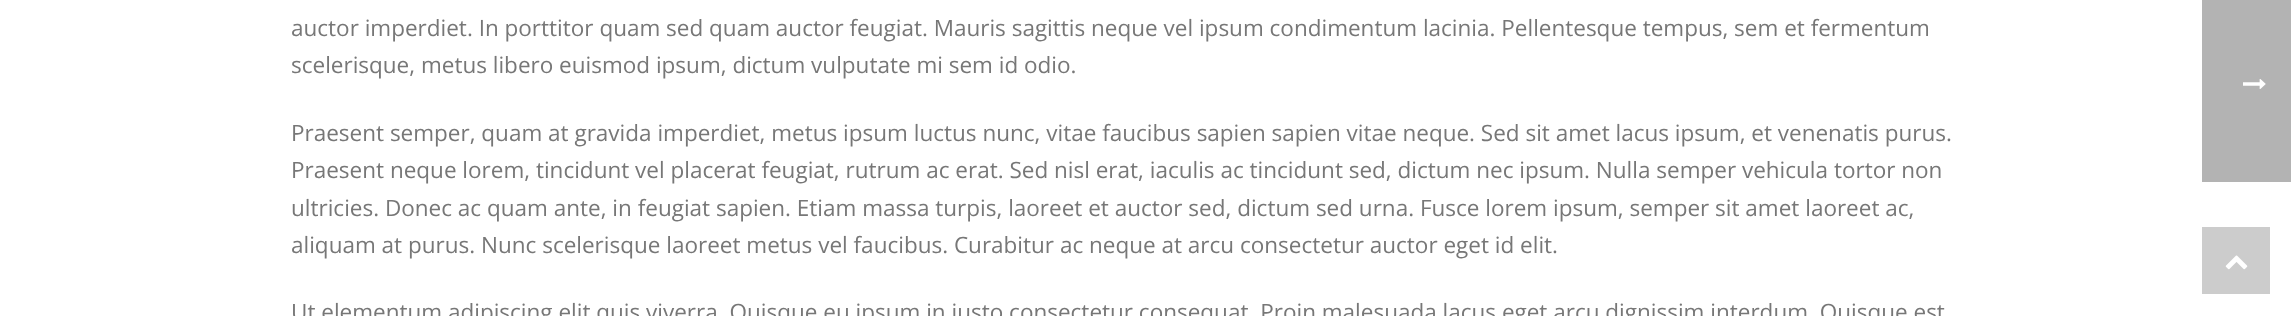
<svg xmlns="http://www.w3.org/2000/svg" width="2291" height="316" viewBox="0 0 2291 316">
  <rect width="100%" height="100%" fill="rgb(255,255,255)"/>
  <g font-family="Open Sans" font-size="22.5" fill="rgb(119,119,119)">
    <text>
      <tspan x="291" y="36">auctor imperdiet. In porttitor quam sed quam auctor feugiat. Mauris sagittis neque vel ipsum condimentum lacinia. Pellentesque tempus, sem et fermentum</tspan>
      <tspan x="291" y="73">scelerisque, metus libero euismod ipsum, dictum vulputate mi sem id odio.</tspan>
    </text>
    <text>
      <tspan x="291" y="141">Praesent semper, quam at gravida imperdiet, metus ipsum luctus nunc, vitae faucibus sapien sapien vitae neque. Sed sit amet lacus ipsum, et venenatis purus.</tspan>
      <tspan x="291" y="178">Praesent neque lorem, tincidunt vel placerat feugiat, rutrum ac erat. Sed nisl erat, iaculis ac tincidunt sed, dictum nec ipsum. Nulla semper vehicula tortor non</tspan>
      <tspan x="291" y="216">ultricies. Donec ac quam ante, in feugiat sapien. Etiam massa turpis, laoreet et auctor sed, dictum sed urna. Fusce lorem ipsum, semper sit amet laoreet ac,</tspan>
      <tspan x="291" y="253">aliquam at purus. Nunc scelerisque laoreet metus vel faucibus. Curabitur ac neque at arcu consectetur auctor eget id elit.</tspan>
    </text>
    <text x="291" y="320">Ut elementum adipiscing elit quis viverra. Quisque eu ipsum in justo consectetur consequat. Proin malesuada lacus eget arcu dignissim interdum. Quisque est</text>
  </g>
  <rect x="2202" y="0" width="89" height="182" fill="rgb(179,179,179)"/>
  <image x="2243" y="79" width="23" height="10" href="pic1.png"/>
  <rect x="2202" y="227" width="68" height="67" fill="rgb(204,204,204)"/>
  <image x="2225" y="255" width="23" height="15" href="pic2.png"/>
</svg>
